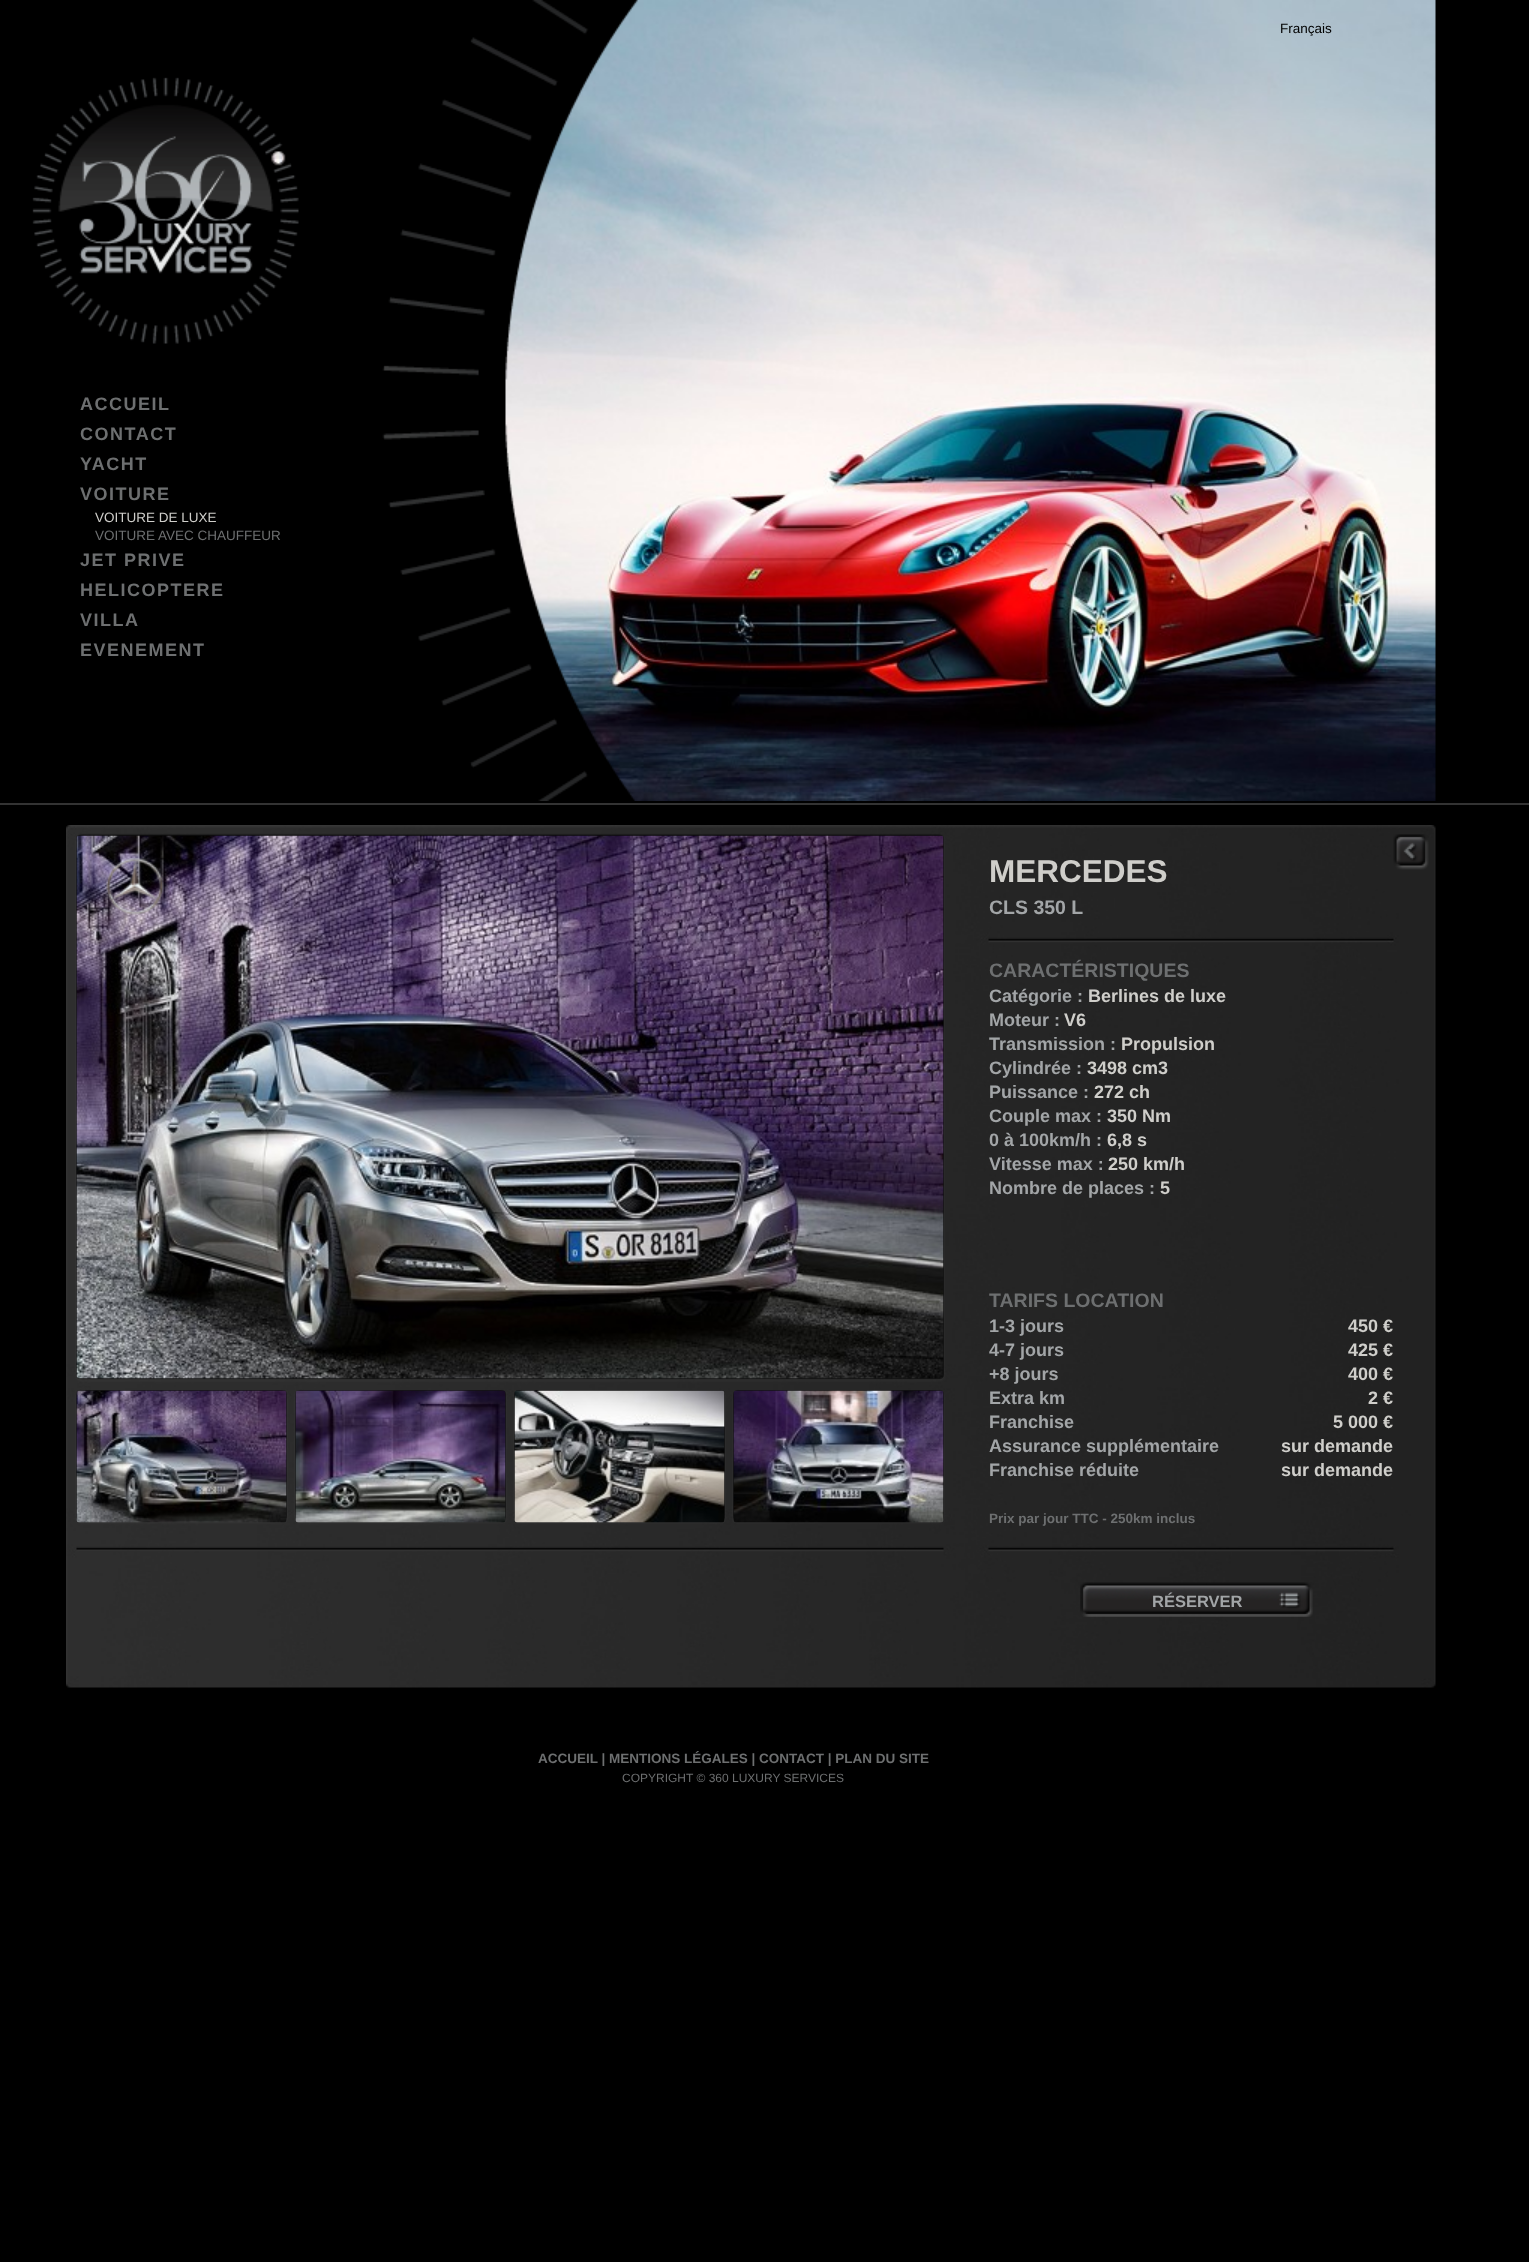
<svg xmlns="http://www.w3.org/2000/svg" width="1529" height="2262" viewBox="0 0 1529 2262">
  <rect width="100%" height="100%" fill="rgb(0,0,0)"/>
  <image x="505" y="0" width="931" height="801" href="pic3.png"/>
  <image x="382" y="0" width="256" height="801" href="pic1.png"/>
  <text x="1280" y="33" font-family="Liberation Sans" font-size="13.5" fill="rgb(0,0,0)">Français</text>
  <image x="32" y="77" width="267" height="267" href="pic2.png"/>
  <g font-family="Liberation Sans" font-size="18" font-weight="bold" letter-spacing="1.5" fill="rgb(109,111,112)">
    <text>
      <tspan x="80" y="410">ACCUEIL</tspan>
      <tspan x="80" y="440">CONTACT</tspan>
      <tspan x="80" y="470">YACHT</tspan>
      <tspan x="80" y="500">VOITURE</tspan>
    </text>
  </g>
  <text x="95" y="522" font-family="Liberation Sans" font-size="13.5" fill="rgb(207,206,202)">VOITURE DE LUXE</text>
  <text x="95" y="540" font-family="Liberation Sans" font-size="13.5" fill="rgb(109,111,112)">VOITURE AVEC CHAUFFEUR</text>
  <g font-family="Liberation Sans" font-size="18" font-weight="bold" letter-spacing="1.5" fill="rgb(109,111,112)">
    <text>
      <tspan x="80" y="566">JET PRIVE</tspan>
      <tspan x="80" y="596">HELICOPTERE</tspan>
      <tspan x="80" y="626">VILLA</tspan>
      <tspan x="80" y="656">EVENEMENT</tspan>
    </text>
  </g>
  <image x="66" y="825" width="1370" height="863" href="pic4.png"/>
  <image x="76" y="835" width="868" height="544" href="pic5.png"/>
  <image x="106" y="857" width="58" height="59" href="pic6.png"/>
  <image x="76" y="1390" width="211" height="133" href="pic7.png"/>
  <image x="295" y="1390" width="211" height="133" href="pic8.png"/>
  <image x="514" y="1390" width="211" height="133" href="pic9.png"/>
  <image x="733" y="1390" width="211" height="133" href="pic10.png"/>
  <image x="1393" y="834" width="36" height="36" href="pic11.png"/>
  <text x="989" y="882" font-family="Liberation Sans" font-size="31.5" font-weight="bold" fill="rgb(207,206,202)">MERCEDES</text>
  <text x="989" y="914" font-family="Liberation Sans" font-size="19.5" font-weight="bold" fill="rgb(162,165,167)">CLS 350 L</text>
  <text x="989" y="977" font-family="Liberation Sans" font-size="19.5" font-weight="bold" fill="rgb(109,111,112)">CARACTÉRISTIQUES</text>
  <text x="989" y="1002" font-family="Liberation Sans" font-size="18" font-weight="bold" fill="rgb(162,165,167)">Catégorie :</text>
  <text x="1088" y="1002" font-family="Liberation Sans" font-size="18" font-weight="bold" fill="rgb(207,206,202)">Berlines de luxe</text>
  <text x="989" y="1026" font-family="Liberation Sans" font-size="18" font-weight="bold" fill="rgb(162,165,167)">Moteur :</text>
  <text x="1064" y="1026" font-family="Liberation Sans" font-size="18" font-weight="bold" fill="rgb(207,206,202)">V6</text>
  <text x="989" y="1050" font-family="Liberation Sans" font-size="18" font-weight="bold" fill="rgb(162,165,167)">Transmission :</text>
  <text x="1121" y="1050" font-family="Liberation Sans" font-size="18" font-weight="bold" fill="rgb(207,206,202)">Propulsion</text>
  <text x="989" y="1074" font-family="Liberation Sans" font-size="18" font-weight="bold" fill="rgb(162,165,167)">Cylindrée :</text>
  <text x="1087" y="1074" font-family="Liberation Sans" font-size="18" font-weight="bold" fill="rgb(207,206,202)">3498 cm3</text>
  <text x="989" y="1098" font-family="Liberation Sans" font-size="18" font-weight="bold" fill="rgb(162,165,167)">Puissance :</text>
  <text x="1094" y="1098" font-family="Liberation Sans" font-size="18" font-weight="bold" fill="rgb(207,206,202)">272 ch</text>
  <text x="989" y="1122" font-family="Liberation Sans" font-size="18" font-weight="bold" fill="rgb(162,165,167)">Couple max :</text>
  <text x="1107" y="1122" font-family="Liberation Sans" font-size="18" font-weight="bold" fill="rgb(207,206,202)">350 Nm</text>
  <text x="989" y="1146" font-family="Liberation Sans" font-size="18" font-weight="bold" fill="rgb(162,165,167)">0 à 100km/h :</text>
  <text x="1107" y="1146" font-family="Liberation Sans" font-size="18" font-weight="bold" fill="rgb(207,206,202)">6,8 s</text>
  <text x="989" y="1170" font-family="Liberation Sans" font-size="18" font-weight="bold" fill="rgb(162,165,167)">Vitesse max :</text>
  <text x="1108" y="1170" font-family="Liberation Sans" font-size="18" font-weight="bold" fill="rgb(207,206,202)">250 km/h</text>
  <text x="989" y="1194" font-family="Liberation Sans" font-size="18" font-weight="bold" fill="rgb(162,165,167)">Nombre de places :</text>
  <text x="1160" y="1194" font-family="Liberation Sans" font-size="18" font-weight="bold" fill="rgb(207,206,202)">5</text>
  <text x="989" y="1307" font-family="Liberation Sans" font-size="19.5" font-weight="bold" fill="rgb(109,111,112)">TARIFS LOCATION</text>
  <text x="989" y="1332" font-family="Liberation Sans" font-size="18" font-weight="bold" fill="rgb(162,165,167)">1-3 jours</text>
  <text x="1348" y="1332" font-family="Liberation Sans" font-size="18" font-weight="bold" fill="rgb(207,206,202)">450 €</text>
  <text x="989" y="1356" font-family="Liberation Sans" font-size="18" font-weight="bold" fill="rgb(162,165,167)">4-7 jours</text>
  <text x="1348" y="1356" font-family="Liberation Sans" font-size="18" font-weight="bold" fill="rgb(207,206,202)">425 €</text>
  <text x="989" y="1380" font-family="Liberation Sans" font-size="18" font-weight="bold" fill="rgb(162,165,167)">+8 jours</text>
  <text x="1348" y="1380" font-family="Liberation Sans" font-size="18" font-weight="bold" fill="rgb(207,206,202)">400 €</text>
  <text x="989" y="1404" font-family="Liberation Sans" font-size="18" font-weight="bold" fill="rgb(162,165,167)">Extra km</text>
  <text x="1368" y="1404" font-family="Liberation Sans" font-size="18" font-weight="bold" fill="rgb(207,206,202)">2 €</text>
  <text x="989" y="1428" font-family="Liberation Sans" font-size="18" font-weight="bold" fill="rgb(162,165,167)">Franchise</text>
  <text x="1333" y="1428" font-family="Liberation Sans" font-size="18" font-weight="bold" fill="rgb(207,206,202)">5 000 €</text>
  <text x="989" y="1452" font-family="Liberation Sans" font-size="18" font-weight="bold" fill="rgb(162,165,167)">Assurance supplémentaire</text>
  <text x="1281" y="1452" font-family="Liberation Sans" font-size="18" font-weight="bold" fill="rgb(207,206,202)">sur demande</text>
  <text x="989" y="1476" font-family="Liberation Sans" font-size="18" font-weight="bold" fill="rgb(162,165,167)">Franchise réduite</text>
  <text x="1281" y="1476" font-family="Liberation Sans" font-size="18" font-weight="bold" fill="rgb(207,206,202)">sur demande</text>
  <text x="989" y="1523" font-family="Liberation Sans" font-size="13.5" font-weight="bold" fill="rgb(109,111,112)">Prix par jour TTC - 250km inclus</text>
  <image x="1080" y="1582" width="233" height="35" href="pic12.png"/>
  <text x="1152" y="1607" font-family="Liberation Sans" font-size="16.5" font-weight="bold" fill="rgb(162,165,167)">RÉSERVER</text>
  <text x="538" y="1763" font-family="Liberation Sans" font-size="13.5" font-weight="bold" fill="rgb(109,111,112)">ACCUEIL | MENTIONS LÉGALES | CONTACT | PLAN DU SITE</text>
  <text x="622" y="1782" font-family="Liberation Sans" font-size="12" fill="rgb(109,111,112)">COPYRIGHT © 360 LUXURY SERVICES</text>
  <rect x="0" y="803" width="1529" height="2" fill="rgb(51,51,51)"/>
</svg>
